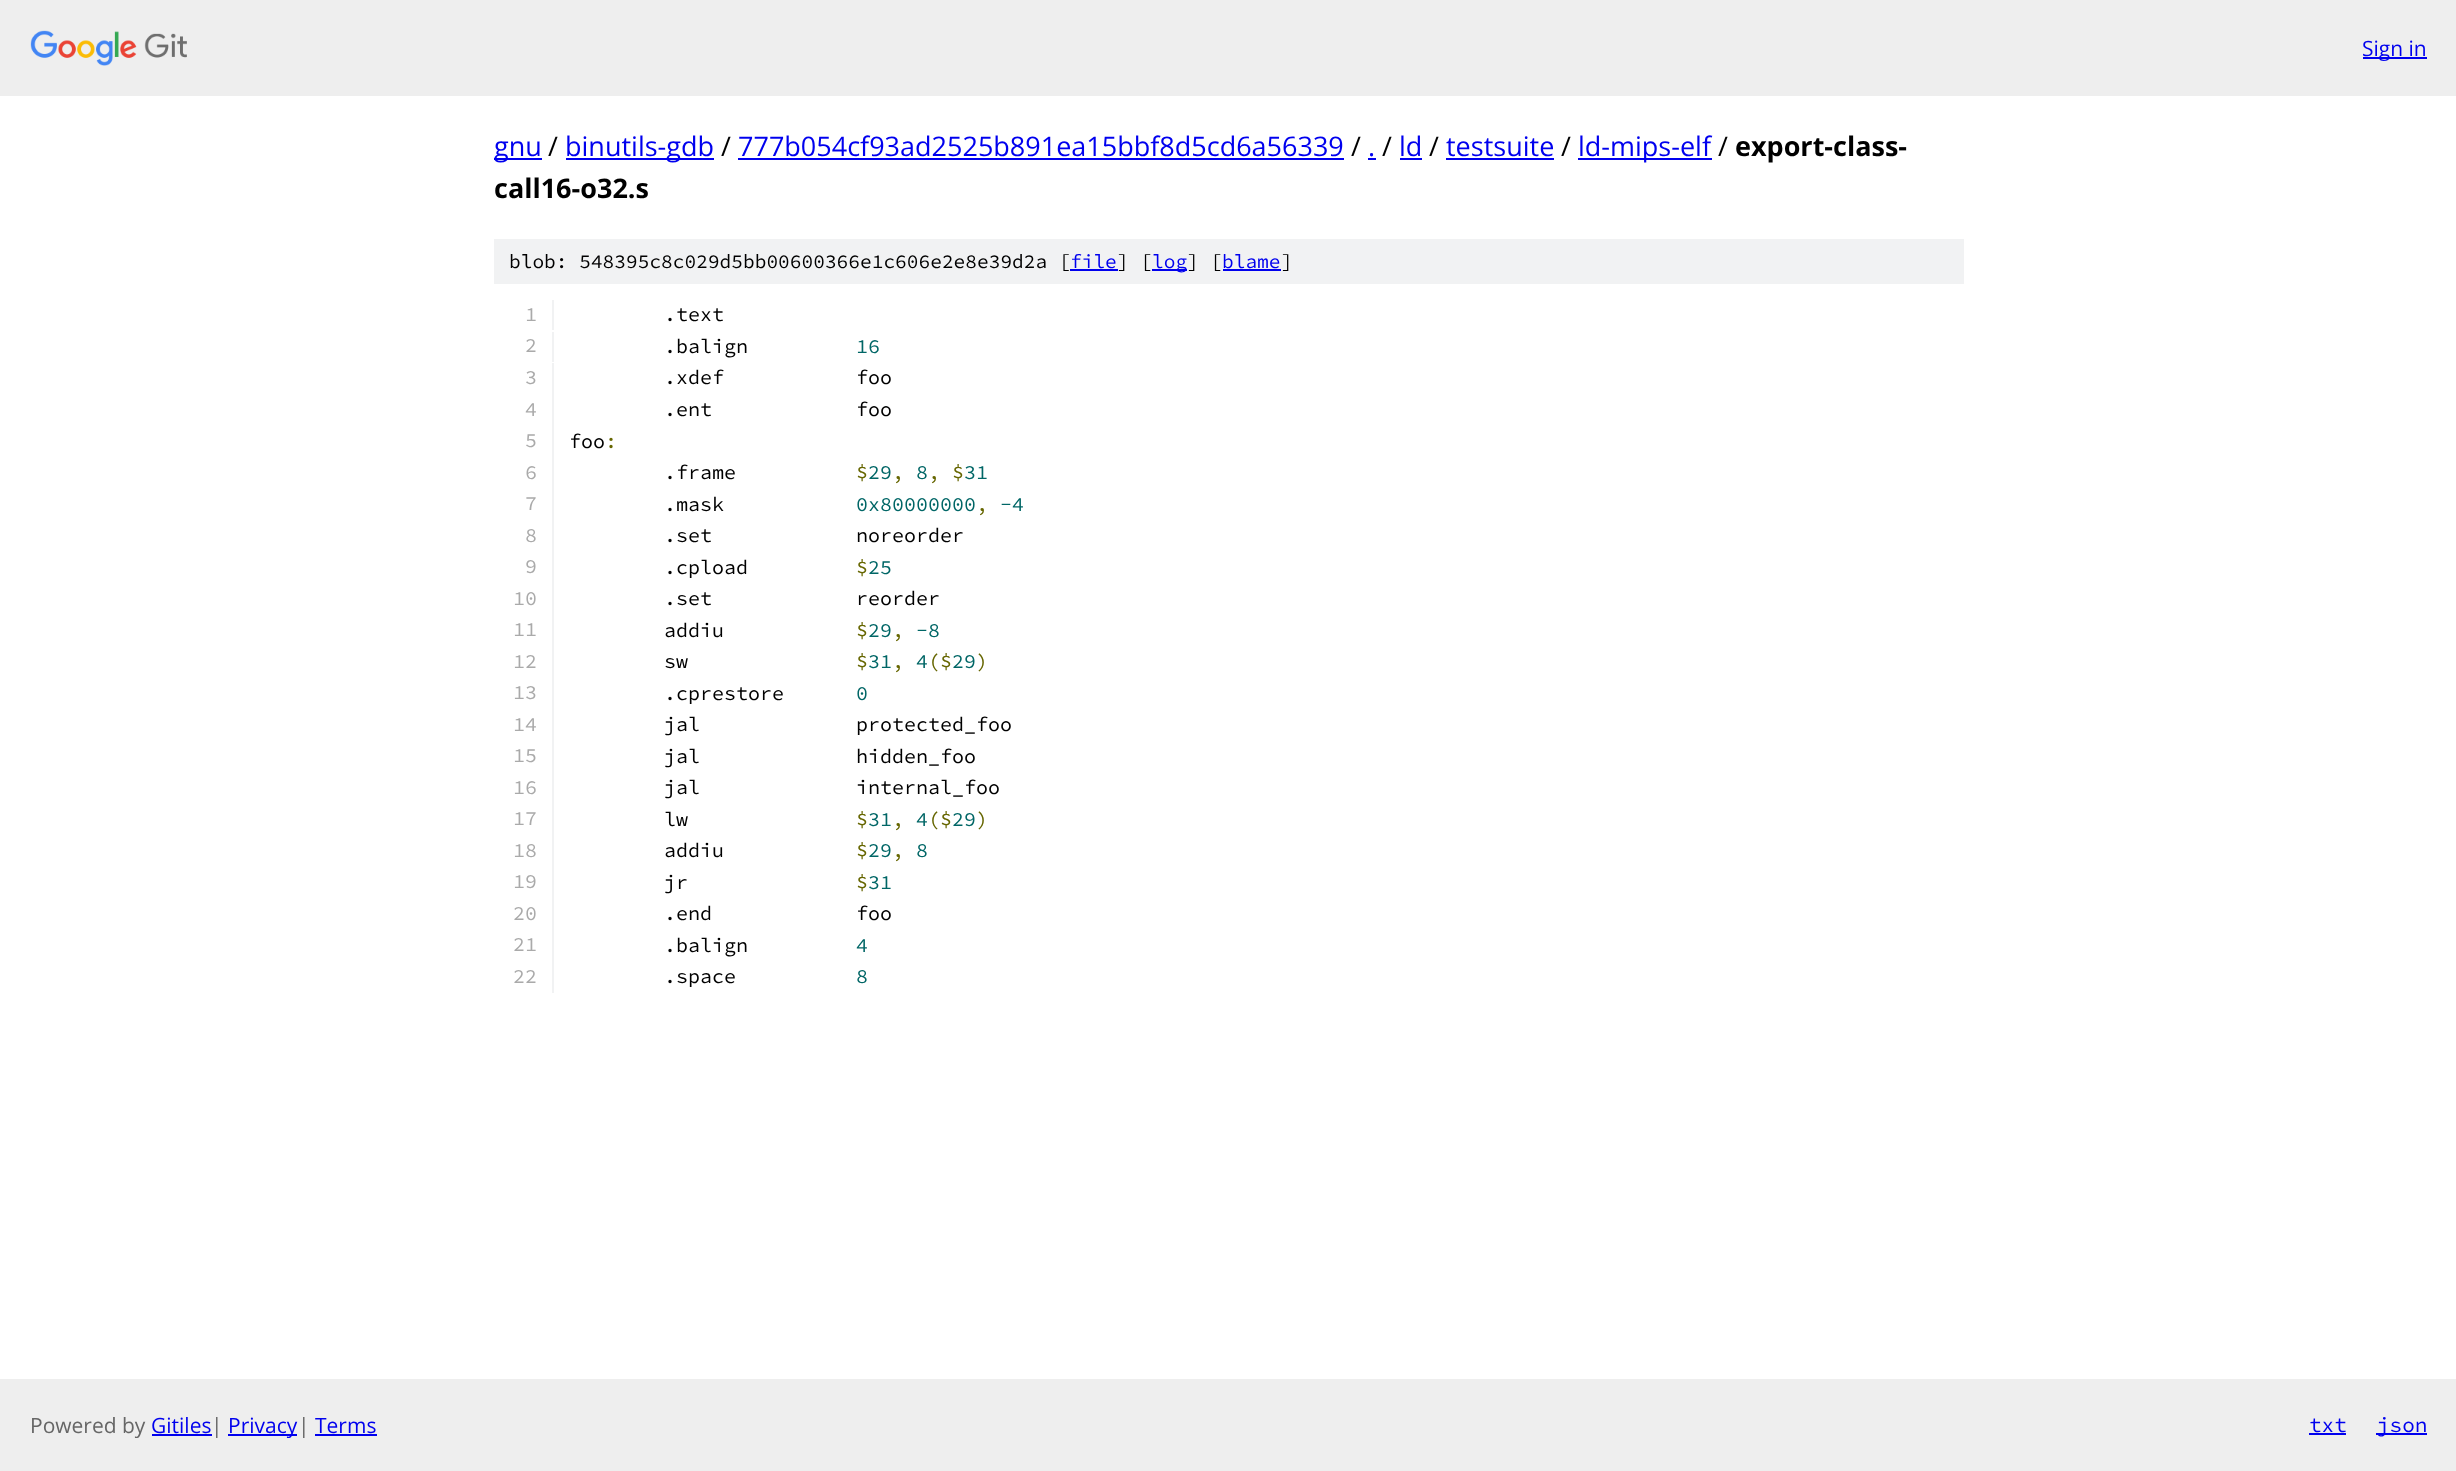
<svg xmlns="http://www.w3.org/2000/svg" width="2456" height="1471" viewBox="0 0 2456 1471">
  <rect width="100%" height="100%" fill="rgb(255,255,255)"/>
  <rect x="0" y="0" width="2456" height="96" fill="rgb(238,238,238)"/>
  <image x="30" y="30" width="157" height="36" href="pic1.png"/>
  <rect x="2363" y="57" width="64" height="2" fill="rgb(0,0,238)"/>
  <text x="2362" y="56" font-family="Open Sans" font-size="21" fill="rgb(0,0,238)">Sign in</text>
  <rect x="494" y="158" width="48" height="2" fill="rgb(0,0,238)"/>
  <text x="494" y="156" font-family="Open Sans" font-size="27" fill="rgb(0,0,238)">gnu</text>
  <text x="548" y="156" font-family="Open Sans" font-size="27" fill="rgb(0,0,0)">/</text>
  <rect x="566" y="158" width="148" height="2" fill="rgb(0,0,238)"/>
  <text x="565" y="156" font-family="Open Sans" font-size="27" fill="rgb(0,0,238)">binutils-gdb</text>
  <text x="721" y="156" font-family="Open Sans" font-size="27" fill="rgb(0,0,0)">/</text>
  <text x="738" y="156" font-family="Open Sans" font-size="27" fill="rgb(0,0,238)">777b054cf93ad2525b891ea15bbf8d5cd6a56339</text>
  <rect x="738" y="158" width="606" height="2" fill="rgb(0,0,238)"/>
  <text x="1351" y="156" font-family="Open Sans" font-size="27" fill="rgb(0,0,0)">/</text>
  <text x="1368" y="156" font-family="Open Sans" font-size="27" fill="rgb(0,0,238)">.</text>
  <rect x="1368" y="158" width="8" height="2" fill="rgb(0,0,238)"/>
  <text x="1382" y="156" font-family="Open Sans" font-size="27" fill="rgb(0,0,0)">/</text>
  <text x="1399" y="156" font-family="Open Sans" font-size="27" fill="rgb(0,0,238)">ld</text>
  <rect x="1400" y="158" width="22" height="2" fill="rgb(0,0,238)"/>
  <text x="1429" y="156" font-family="Open Sans" font-size="27" fill="rgb(0,0,0)">/</text>
  <text x="1446" y="156" font-family="Open Sans" font-size="27" fill="rgb(0,0,238)">testsuite</text>
  <rect x="1446" y="158" width="108" height="2" fill="rgb(0,0,238)"/>
  <text x="1561" y="156" font-family="Open Sans" font-size="27" fill="rgb(0,0,0)">/</text>
  <rect x="1578" y="158" width="134" height="2" fill="rgb(0,0,238)"/>
  <text x="1578" y="156" font-family="Open Sans" font-size="27" fill="rgb(0,0,238)">ld-mips-elf</text>
  <text x="1718" y="156" font-family="Open Sans" font-size="27" fill="rgb(0,0,0)">/</text>
  <g font-family="Open Sans" font-size="27" font-weight="bold" fill="rgb(0,0,0)">
    <text x="1735" y="156">export-class-</text>
    <text x="494" y="198">call16-o32.s</text>
  </g>
  <rect x="494" y="239" width="1470" height="45" fill="rgb(241,242,243)"/>
  <text x="509" y="268" font-family="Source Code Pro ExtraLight" font-size="19.5" font-weight="200" fill="rgb(0,0,0)">blob: 548395c8c029d5bb00600366e1c606e2e8e39d2a [</text>
  <text x="1070" y="268" font-family="Source Code Pro ExtraLight" font-size="19.5" font-weight="200" fill="rgb(0,0,238)">file</text>
  <rect x="1070" y="269" width="48" height="2" fill="rgb(0,0,238)"/>
  <text x="1117" y="268" font-family="Source Code Pro ExtraLight" font-size="19.5" font-weight="200" fill="rgb(0,0,0)">] [</text>
  <rect x="1152" y="269" width="35" height="2" fill="rgb(0,0,238)"/>
  <text x="1152" y="268" font-family="Source Code Pro ExtraLight" font-size="19.5" font-weight="200" fill="rgb(0,0,238)">log</text>
  <text x="1187" y="268" font-family="Source Code Pro ExtraLight" font-size="19.5" font-weight="200" fill="rgb(0,0,0)">] [</text>
  <text x="1222" y="268" font-family="Source Code Pro ExtraLight" font-size="19.5" font-weight="200" fill="rgb(0,0,238)">blame</text>
  <rect x="1223" y="269" width="58" height="2" fill="rgb(0,0,238)"/>
  <text x="1281" y="268" font-family="Source Code Pro ExtraLight" font-size="19.5" font-weight="200" fill="rgb(0,0,0)">]</text>
  <rect x="552" y="300" width="2" height="30" fill="rgb(241,242,243)"/>
  <text x="525" y="321" font-family="Source Code Pro ExtraLight" font-size="20" font-weight="200" fill="rgb(170,170,170)">1</text>
  <text x="664" y="321" font-family="Source Code Pro ExtraLight" font-size="20" font-weight="200" fill="rgb(0,0,0)">.text</text>
  <rect x="552" y="332" width="2" height="30" fill="rgb(241,242,243)"/>
  <text x="525" y="352" font-family="Source Code Pro ExtraLight" font-size="20" font-weight="200" fill="rgb(170,170,170)">2</text>
  <text x="664" y="353" font-family="Source Code Pro ExtraLight" font-size="20" font-weight="200" fill="rgb(0,0,0)">.balign</text>
  <text x="856" y="353" font-family="Source Code Pro ExtraLight" font-size="20" font-weight="200" fill="rgb(0,102,102)">16</text>
  <rect x="552" y="363" width="2" height="630" fill="rgb(241,242,243)"/>
  <text x="525" y="384" font-family="Source Code Pro ExtraLight" font-size="20" font-weight="200" fill="rgb(170,170,170)">3</text>
  <g font-family="Source Code Pro ExtraLight" font-size="20" font-weight="200" fill="rgb(0,0,0)">
    <text x="664" y="384">.xdef</text>
    <text x="856" y="384">foo</text>
  </g>
  <text x="525" y="416" font-family="Source Code Pro ExtraLight" font-size="20" font-weight="200" fill="rgb(170,170,170)">4</text>
  <g font-family="Source Code Pro ExtraLight" font-size="20" font-weight="200" fill="rgb(0,0,0)">
    <text x="664" y="416">.ent</text>
    <text x="856" y="416">foo</text>
  </g>
  <text x="525" y="447" font-family="Source Code Pro ExtraLight" font-size="20" font-weight="200" fill="rgb(170,170,170)">5</text>
  <text x="569" y="448" font-family="Source Code Pro ExtraLight" font-size="20" font-weight="200" fill="rgb(0,0,0)">foo</text>
  <text x="605" y="448" font-family="Source Code Pro ExtraLight" font-size="20" font-weight="200" fill="rgb(102,102,0)">:</text>
  <text x="525" y="479" font-family="Source Code Pro ExtraLight" font-size="20" font-weight="200" fill="rgb(170,170,170)">6</text>
  <text x="664" y="479" font-family="Source Code Pro ExtraLight" font-size="20" font-weight="200" fill="rgb(0,0,0)">.frame</text>
  <text x="856" y="479" font-family="Source Code Pro ExtraLight" font-size="20" font-weight="200" fill="rgb(102,102,0)">$</text>
  <text x="868" y="479" font-family="Source Code Pro ExtraLight" font-size="20" font-weight="200" fill="rgb(0,102,102)">29</text>
  <text x="892" y="479" font-family="Source Code Pro ExtraLight" font-size="20" font-weight="200" fill="rgb(102,102,0)">,</text>
  <text x="916" y="479" font-family="Source Code Pro ExtraLight" font-size="20" font-weight="200" fill="rgb(0,102,102)">8</text>
  <text x="928" y="479" font-family="Source Code Pro ExtraLight" font-size="20" font-weight="200" fill="rgb(102,102,0)">, $</text>
  <text x="964" y="479" font-family="Source Code Pro ExtraLight" font-size="20" font-weight="200" fill="rgb(0,102,102)">31</text>
  <text x="525" y="510" font-family="Source Code Pro ExtraLight" font-size="20" font-weight="200" fill="rgb(170,170,170)">7</text>
  <text x="664" y="511" font-family="Source Code Pro ExtraLight" font-size="20" font-weight="200" fill="rgb(0,0,0)">.mask</text>
  <text x="856" y="511" font-family="Source Code Pro ExtraLight" font-size="20" font-weight="200" fill="rgb(0,102,102)">0x80000000</text>
  <text x="976" y="511" font-family="Source Code Pro ExtraLight" font-size="20" font-weight="200" fill="rgb(102,102,0)">,</text>
  <text x="1000" y="511" font-family="Source Code Pro ExtraLight" font-size="20" font-weight="200" fill="rgb(0,102,102)">-4</text>
  <text x="525" y="542" font-family="Source Code Pro ExtraLight" font-size="20" font-weight="200" fill="rgb(170,170,170)">8</text>
  <g font-family="Source Code Pro ExtraLight" font-size="20" font-weight="200" fill="rgb(0,0,0)">
    <text x="664" y="542">.set</text>
    <text x="856" y="542">noreorder</text>
  </g>
  <text x="525" y="573" font-family="Source Code Pro ExtraLight" font-size="20" font-weight="200" fill="rgb(170,170,170)">9</text>
  <text x="664" y="574" font-family="Source Code Pro ExtraLight" font-size="20" font-weight="200" fill="rgb(0,0,0)">.cpload</text>
  <text x="856" y="574" font-family="Source Code Pro ExtraLight" font-size="20" font-weight="200" fill="rgb(102,102,0)">$</text>
  <text x="868" y="574" font-family="Source Code Pro ExtraLight" font-size="20" font-weight="200" fill="rgb(0,102,102)">25</text>
  <text x="513" y="605" font-family="Source Code Pro ExtraLight" font-size="20" font-weight="200" fill="rgb(170,170,170)">10</text>
  <g font-family="Source Code Pro ExtraLight" font-size="20" font-weight="200" fill="rgb(0,0,0)">
    <text x="664" y="605">.set</text>
    <text x="856" y="605">reorder</text>
  </g>
  <text x="513" y="636" font-family="Source Code Pro ExtraLight" font-size="20" font-weight="200" fill="rgb(170,170,170)">11</text>
  <text x="664" y="637" font-family="Source Code Pro ExtraLight" font-size="20" font-weight="200" fill="rgb(0,0,0)">addiu</text>
  <text x="856" y="637" font-family="Source Code Pro ExtraLight" font-size="20" font-weight="200" fill="rgb(102,102,0)">$</text>
  <text x="868" y="637" font-family="Source Code Pro ExtraLight" font-size="20" font-weight="200" fill="rgb(0,102,102)">29</text>
  <text x="892" y="637" font-family="Source Code Pro ExtraLight" font-size="20" font-weight="200" fill="rgb(102,102,0)">,</text>
  <text x="916" y="637" font-family="Source Code Pro ExtraLight" font-size="20" font-weight="200" fill="rgb(0,102,102)">-8</text>
  <text x="513" y="668" font-family="Source Code Pro ExtraLight" font-size="20" font-weight="200" fill="rgb(170,170,170)">12</text>
  <text x="664" y="668" font-family="Source Code Pro ExtraLight" font-size="20" font-weight="200" fill="rgb(0,0,0)">sw</text>
  <text x="856" y="668" font-family="Source Code Pro ExtraLight" font-size="20" font-weight="200" fill="rgb(102,102,0)">$</text>
  <text x="868" y="668" font-family="Source Code Pro ExtraLight" font-size="20" font-weight="200" fill="rgb(0,102,102)">31</text>
  <text x="892" y="668" font-family="Source Code Pro ExtraLight" font-size="20" font-weight="200" fill="rgb(102,102,0)">,</text>
  <text x="916" y="668" font-family="Source Code Pro ExtraLight" font-size="20" font-weight="200" fill="rgb(0,102,102)">4</text>
  <text x="928" y="668" font-family="Source Code Pro ExtraLight" font-size="20" font-weight="200" fill="rgb(102,102,0)">($</text>
  <text x="952" y="668" font-family="Source Code Pro ExtraLight" font-size="20" font-weight="200" fill="rgb(0,102,102)">29</text>
  <text x="976" y="668" font-family="Source Code Pro ExtraLight" font-size="20" font-weight="200" fill="rgb(102,102,0)">)</text>
  <text x="513" y="699" font-family="Source Code Pro ExtraLight" font-size="20" font-weight="200" fill="rgb(170,170,170)">13</text>
  <text x="664" y="700" font-family="Source Code Pro ExtraLight" font-size="20" font-weight="200" fill="rgb(0,0,0)">.cprestore</text>
  <text x="856" y="700" font-family="Source Code Pro ExtraLight" font-size="20" font-weight="200" fill="rgb(0,102,102)">0</text>
  <text x="513" y="731" font-family="Source Code Pro ExtraLight" font-size="20" font-weight="200" fill="rgb(170,170,170)">14</text>
  <g font-family="Source Code Pro ExtraLight" font-size="20" font-weight="200" fill="rgb(0,0,0)">
    <text x="664" y="731">jal</text>
    <text x="856" y="731">protected_foo</text>
  </g>
  <text x="513" y="762" font-family="Source Code Pro ExtraLight" font-size="20" font-weight="200" fill="rgb(170,170,170)">15</text>
  <g font-family="Source Code Pro ExtraLight" font-size="20" font-weight="200" fill="rgb(0,0,0)">
    <text x="664" y="763">jal</text>
    <text x="856" y="763">hidden_foo</text>
  </g>
  <text x="513" y="794" font-family="Source Code Pro ExtraLight" font-size="20" font-weight="200" fill="rgb(170,170,170)">16</text>
  <g font-family="Source Code Pro ExtraLight" font-size="20" font-weight="200" fill="rgb(0,0,0)">
    <text x="664" y="794">jal</text>
    <text x="856" y="794">internal_foo</text>
  </g>
  <text x="513" y="825" font-family="Source Code Pro ExtraLight" font-size="20" font-weight="200" fill="rgb(170,170,170)">17</text>
  <text x="664" y="826" font-family="Source Code Pro ExtraLight" font-size="20" font-weight="200" fill="rgb(0,0,0)">lw</text>
  <text x="856" y="826" font-family="Source Code Pro ExtraLight" font-size="20" font-weight="200" fill="rgb(102,102,0)">$</text>
  <text x="868" y="826" font-family="Source Code Pro ExtraLight" font-size="20" font-weight="200" fill="rgb(0,102,102)">31</text>
  <text x="892" y="826" font-family="Source Code Pro ExtraLight" font-size="20" font-weight="200" fill="rgb(102,102,0)">,</text>
  <text x="916" y="826" font-family="Source Code Pro ExtraLight" font-size="20" font-weight="200" fill="rgb(0,102,102)">4</text>
  <text x="928" y="826" font-family="Source Code Pro ExtraLight" font-size="20" font-weight="200" fill="rgb(102,102,0)">($</text>
  <text x="952" y="826" font-family="Source Code Pro ExtraLight" font-size="20" font-weight="200" fill="rgb(0,102,102)">29</text>
  <text x="976" y="826" font-family="Source Code Pro ExtraLight" font-size="20" font-weight="200" fill="rgb(102,102,0)">)</text>
  <text x="513" y="857" font-family="Source Code Pro ExtraLight" font-size="20" font-weight="200" fill="rgb(170,170,170)">18</text>
  <text x="664" y="857" font-family="Source Code Pro ExtraLight" font-size="20" font-weight="200" fill="rgb(0,0,0)">addiu</text>
  <text x="856" y="857" font-family="Source Code Pro ExtraLight" font-size="20" font-weight="200" fill="rgb(102,102,0)">$</text>
  <text x="868" y="857" font-family="Source Code Pro ExtraLight" font-size="20" font-weight="200" fill="rgb(0,102,102)">29</text>
  <text x="892" y="857" font-family="Source Code Pro ExtraLight" font-size="20" font-weight="200" fill="rgb(102,102,0)">,</text>
  <text x="916" y="857" font-family="Source Code Pro ExtraLight" font-size="20" font-weight="200" fill="rgb(0,102,102)">8</text>
  <text x="513" y="888" font-family="Source Code Pro ExtraLight" font-size="20" font-weight="200" fill="rgb(170,170,170)">19</text>
  <text x="664" y="889" font-family="Source Code Pro ExtraLight" font-size="20" font-weight="200" fill="rgb(0,0,0)">jr</text>
  <text x="856" y="889" font-family="Source Code Pro ExtraLight" font-size="20" font-weight="200" fill="rgb(102,102,0)">$</text>
  <text x="868" y="889" font-family="Source Code Pro ExtraLight" font-size="20" font-weight="200" fill="rgb(0,102,102)">31</text>
  <text x="513" y="920" font-family="Source Code Pro ExtraLight" font-size="20" font-weight="200" fill="rgb(170,170,170)">20</text>
  <g font-family="Source Code Pro ExtraLight" font-size="20" font-weight="200" fill="rgb(0,0,0)">
    <text x="664" y="920">.end</text>
    <text x="856" y="920">foo</text>
  </g>
  <text x="513" y="951" font-family="Source Code Pro ExtraLight" font-size="20" font-weight="200" fill="rgb(170,170,170)">21</text>
  <text x="664" y="952" font-family="Source Code Pro ExtraLight" font-size="20" font-weight="200" fill="rgb(0,0,0)">.balign</text>
  <text x="856" y="952" font-family="Source Code Pro ExtraLight" font-size="20" font-weight="200" fill="rgb(0,102,102)">4</text>
  <text x="513" y="983" font-family="Source Code Pro ExtraLight" font-size="20" font-weight="200" fill="rgb(170,170,170)">22</text>
  <text x="664" y="983" font-family="Source Code Pro ExtraLight" font-size="20" font-weight="200" fill="rgb(0,0,0)">.space</text>
  <text x="856" y="983" font-family="Source Code Pro ExtraLight" font-size="20" font-weight="200" fill="rgb(0,102,102)">8</text>
  <rect x="0" y="1379" width="2456" height="92" fill="rgb(238,238,238)"/>
  <text x="30" y="1433" font-family="Open Sans" font-size="21" fill="rgb(102,102,102)">Powered by</text>
  <text x="151" y="1433" font-family="Open Sans" font-size="21" fill="rgb(0,0,238)">Gitiles</text>
  <rect x="152" y="1434" width="60" height="2" fill="rgb(0,0,238)"/>
  <text x="211" y="1433" font-family="Open Sans" font-size="21" fill="rgb(102,102,102)">|</text>
  <rect x="228" y="1434" width="69" height="2" fill="rgb(0,0,238)"/>
  <text x="228" y="1433" font-family="Open Sans" font-size="21" fill="rgb(0,0,238)">Privacy</text>
  <text x="298" y="1433" font-family="Open Sans" font-size="21" fill="rgb(102,102,102)">|</text>
  <text x="315" y="1433" font-family="Open Sans" font-size="21" fill="rgb(0,0,238)">Terms</text>
  <rect x="315" y="1434" width="62" height="2" fill="rgb(0,0,238)"/>
  <text x="2309" y="1432" font-family="Source Code Pro ExtraLight" font-size="21" font-weight="200" fill="rgb(0,0,238)">txt</text>
  <rect x="2309" y="1433" width="37" height="2" fill="rgb(0,0,238)"/>
  <rect x="2376" y="1433" width="51" height="2" fill="rgb(0,0,238)"/>
  <text x="2377" y="1432" font-family="Source Code Pro ExtraLight" font-size="21" font-weight="200" fill="rgb(0,0,238)">json</text>
</svg>
